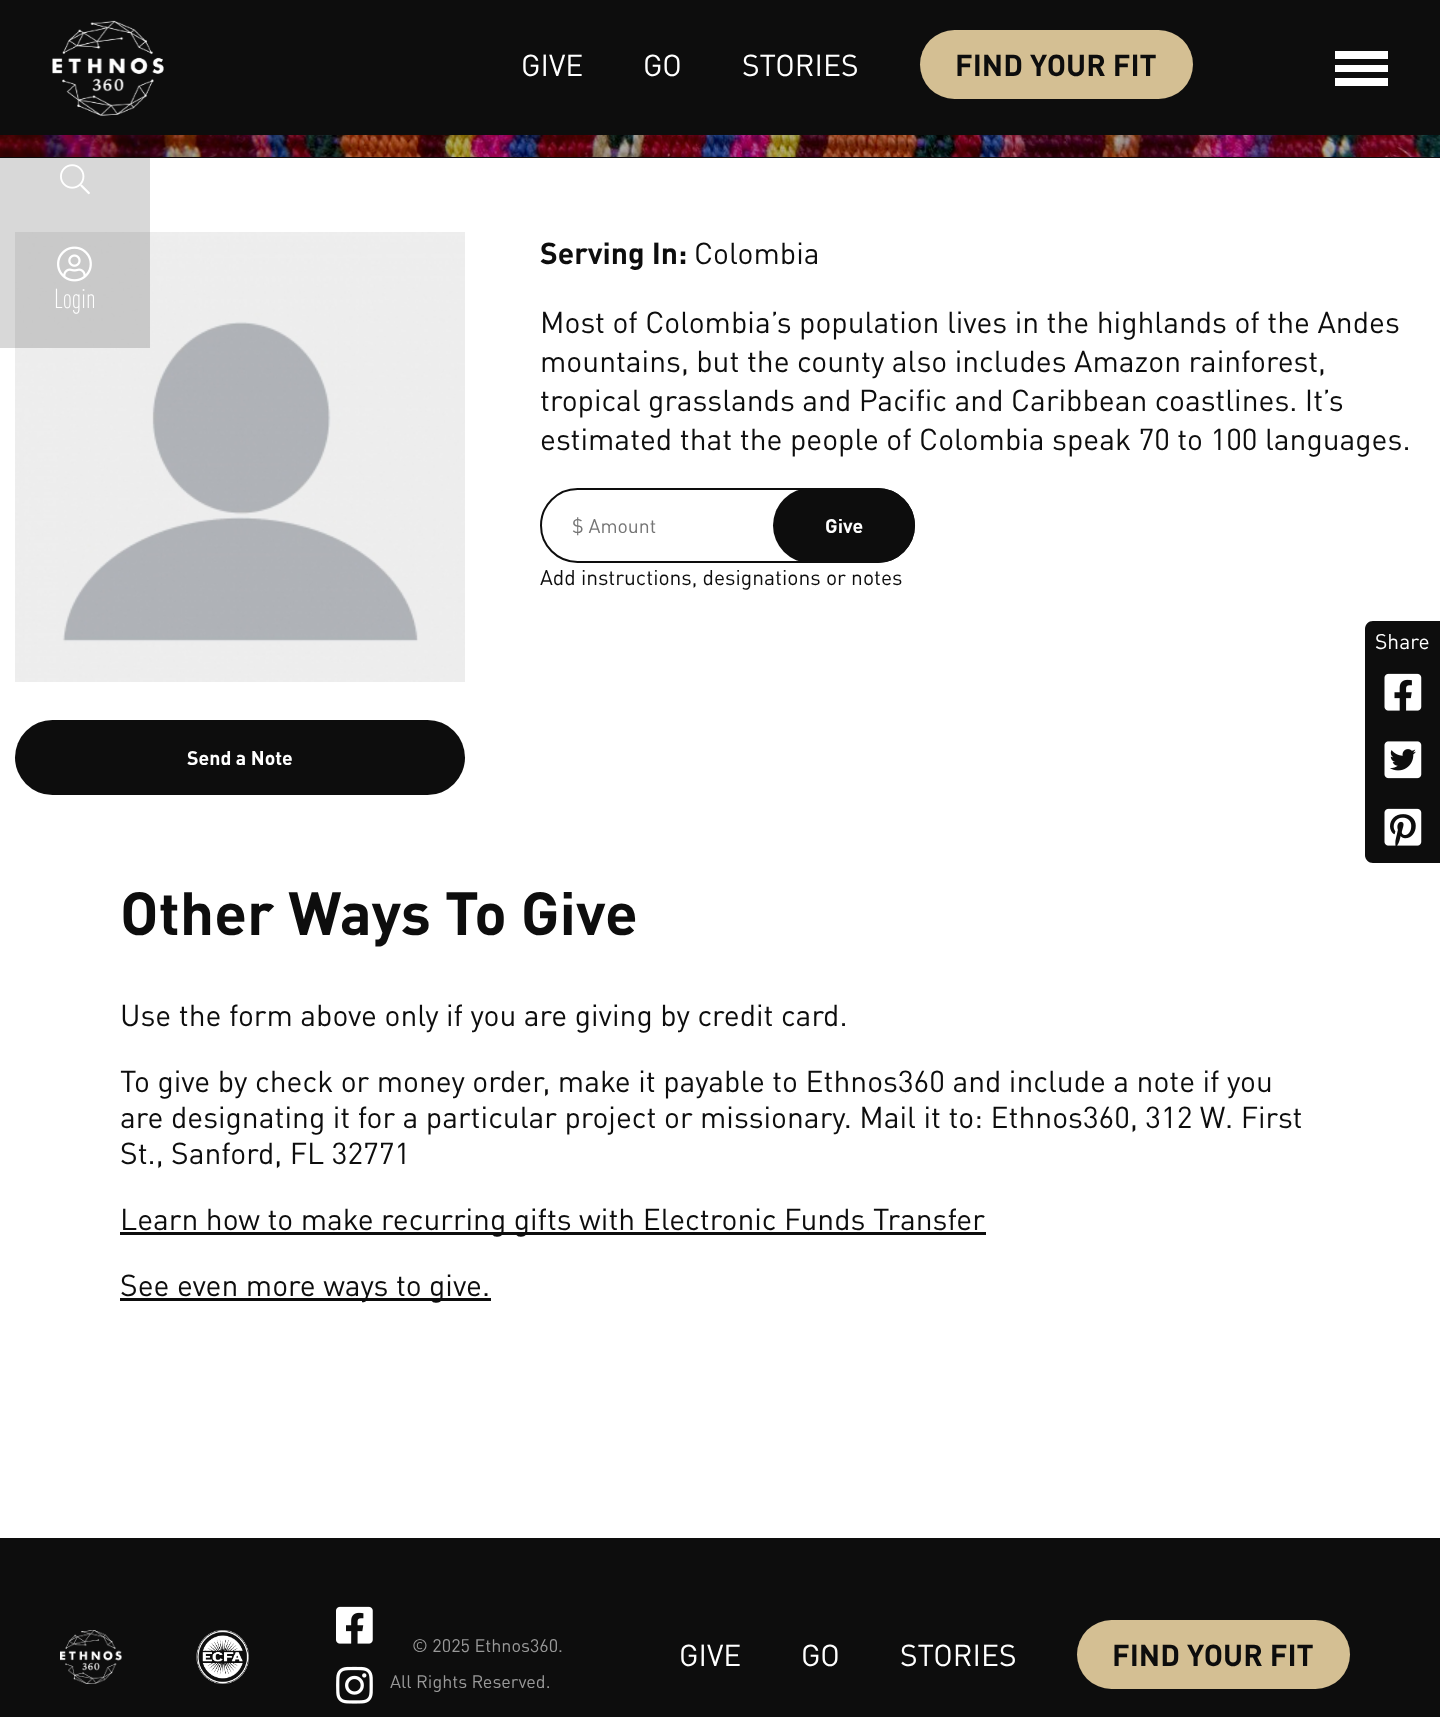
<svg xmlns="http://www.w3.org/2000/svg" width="1440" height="1717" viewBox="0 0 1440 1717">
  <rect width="100%" height="100%" fill="rgb(255,255,255)"/>
  <rect x="0" y="0" width="1440" height="135" fill="rgb(13,13,13)"/>
  <image x="52" y="20" width="112" height="96" href="pic1.png"/>
  <g font-family="DIN" font-size="30" fill="rgb(255,255,255)">
    <text x="521" y="76">GIVE</text>
    <text x="643" y="76">GO</text>
    <text x="742" y="76">STORIES</text>
  </g>
  <rect x="920" y="30" width="273" height="69" rx="34.5" fill="rgb(212,191,147)"/>
  <text x="955" y="76" font-family="DIN" font-size="30" font-weight="bold" fill="rgb(13,13,13)">FIND YOUR FIT</text>
  <rect x="1335" y="51" width="53" height="8" fill="rgb(255,255,255)"/>
  <rect x="1335" y="65" width="53" height="7" fill="rgb(255,255,255)"/>
  <rect x="1335" y="78" width="53" height="8" fill="rgb(255,255,255)"/>
  <rect x="0" y="157" width="1440" height="1" fill="rgb(13,13,13)"/>
  <image x="0" y="135" width="1440" height="22" href="pic4.png"/>
  <image x="15" y="232" width="450" height="450" href="pic8.png"/>
  <rect x="0" y="135" width="150" height="213" fill="rgba(13,13,13,0.16)"/>
  <image x="60" y="164" width="30" height="31" href="pic2.png"/>
  <image x="57" y="246" width="35" height="36" href="pic3.png"/>
  <text x="54" y="308" font-family="DIN" font-size="27" font-weight="300" fill="rgb(255,255,255)">Login</text>
  <text x="540" y="264" font-family="DIN" font-size="30" font-weight="bold" fill="rgb(13,13,13)">Serving In:</text>
  <g font-family="DIN" font-size="30" fill="rgb(13,13,13)">
    <text x="694" y="264">Colombia</text>
    <text>
      <tspan x="540" y="333">Most of Colombia’s population lives in the highlands of the Andes</tspan>
      <tspan x="540" y="372">mountains, but the county also includes Amazon rainforest,</tspan>
      <tspan x="540" y="411">tropical grasslands and Pacific and Caribbean coastlines. It’s</tspan>
      <tspan x="540" y="450">estimated that the people of Colombia speak 70 to 100 languages.</tspan>
    </text>
  </g>
  <rect x="541" y="489" width="373" height="73" rx="36.5" fill="none" stroke="rgb(13,13,13)" stroke-width="2"/>
  <text x="572" y="533" font-family="DIN" font-size="19.5" fill="rgb(117,117,117)">$ Amount</text>
  <rect x="773" y="488" width="142" height="75" rx="37.5" fill="rgb(13,13,13)"/>
  <text x="825" y="533" font-family="DIN" font-size="19.5" font-weight="bold" fill="rgb(255,255,255)">Give</text>
  <text x="540" y="585" font-family="DIN" font-size="21" fill="rgb(13,13,13)">Add instructions, designations or notes</text>
  <path d="M1373 621H1440V660H1365V629C1365 624.5 1368.5 621 1373 621Z" fill="rgb(13,13,13)"/>
  <text x="1375" y="649" font-family="DIN" font-size="21" fill="rgb(255,255,255)">Share</text>
  <rect x="1365" y="660" width="75" height="135" fill="rgb(13,13,13)"/>
  <image x="1384" y="673" width="38" height="38" href="pic5.png"/>
  <image x="1384" y="741" width="38" height="38" href="pic6.png"/>
  <path d="M1365 795H1440V863H1373C1368.5 863 1365 859.5 1365 855Z" fill="rgb(13,13,13)"/>
  <image x="1384" y="808" width="38" height="38" href="pic7.png"/>
  <rect x="15" y="720" width="450" height="75" rx="37.5" fill="rgb(13,13,13)"/>
  <text x="187" y="765" font-family="DIN" font-size="19.5" font-weight="bold" fill="rgb(255,255,255)">Send a Note</text>
  <text x="120" y="935" font-family="DIN" font-size="60" font-weight="bold" fill="rgb(13,13,13)">Other Ways To Give</text>
  <g font-family="DIN" font-size="30" fill="rgb(13,13,13)">
    <text x="120" y="1026">Use the form above only if you are giving by credit card.</text>
    <text>
      <tspan x="120" y="1092">To give by check or money order, make it payable to Ethnos360 and include a note if you</tspan>
      <tspan x="120" y="1128">are designating it for a particular project or missionary. Mail it to: Ethnos360, 312 W. First</tspan>
      <tspan x="120" y="1164">St., Sanford, FL 32771</tspan>
    </text>
  </g>
  <rect x="120" y="1232" width="866" height="3" fill="rgb(13,13,13)"/>
  <text x="120" y="1230" font-family="DIN" font-size="30" fill="rgb(13,13,13)">Learn how to make recurring gifts with Electronic Funds Transfer</text>
  <rect x="120" y="1298" width="371" height="3" fill="rgb(13,13,13)"/>
  <text x="120" y="1296" font-family="DIN" font-size="30" fill="rgb(13,13,13)">See even more ways to give.</text>
  <rect x="0" y="1538" width="1440" height="179" fill="rgb(13,13,13)"/>
  <image x="60" y="1630" width="62" height="54" href="pic9.png"/>
  <image x="196" y="1630" width="53" height="54" href="pic10.png"/>
  <image x="336" y="1606" width="37" height="38" href="pic11.png"/>
  <image x="336" y="1666" width="37" height="38" href="pic12.png"/>
  <g font-family="DIN" font-size="18" fill="rgb(153,153,153)">
    <text x="412" y="1652">© 2025 Ethnos360.</text>
    <text x="390" y="1688">All Rights Reserved.</text>
  </g>
  <g font-family="DIN" font-size="30" fill="rgb(255,255,255)">
    <text x="679" y="1666">GIVE</text>
    <text x="801" y="1666">GO</text>
    <text x="900" y="1666">STORIES</text>
  </g>
  <rect x="1077" y="1620" width="273" height="69" rx="34.5" fill="rgb(212,191,147)"/>
  <text x="1112" y="1666" font-family="DIN" font-size="30" font-weight="bold" fill="rgb(13,13,13)">FIND YOUR FIT</text>
</svg>
